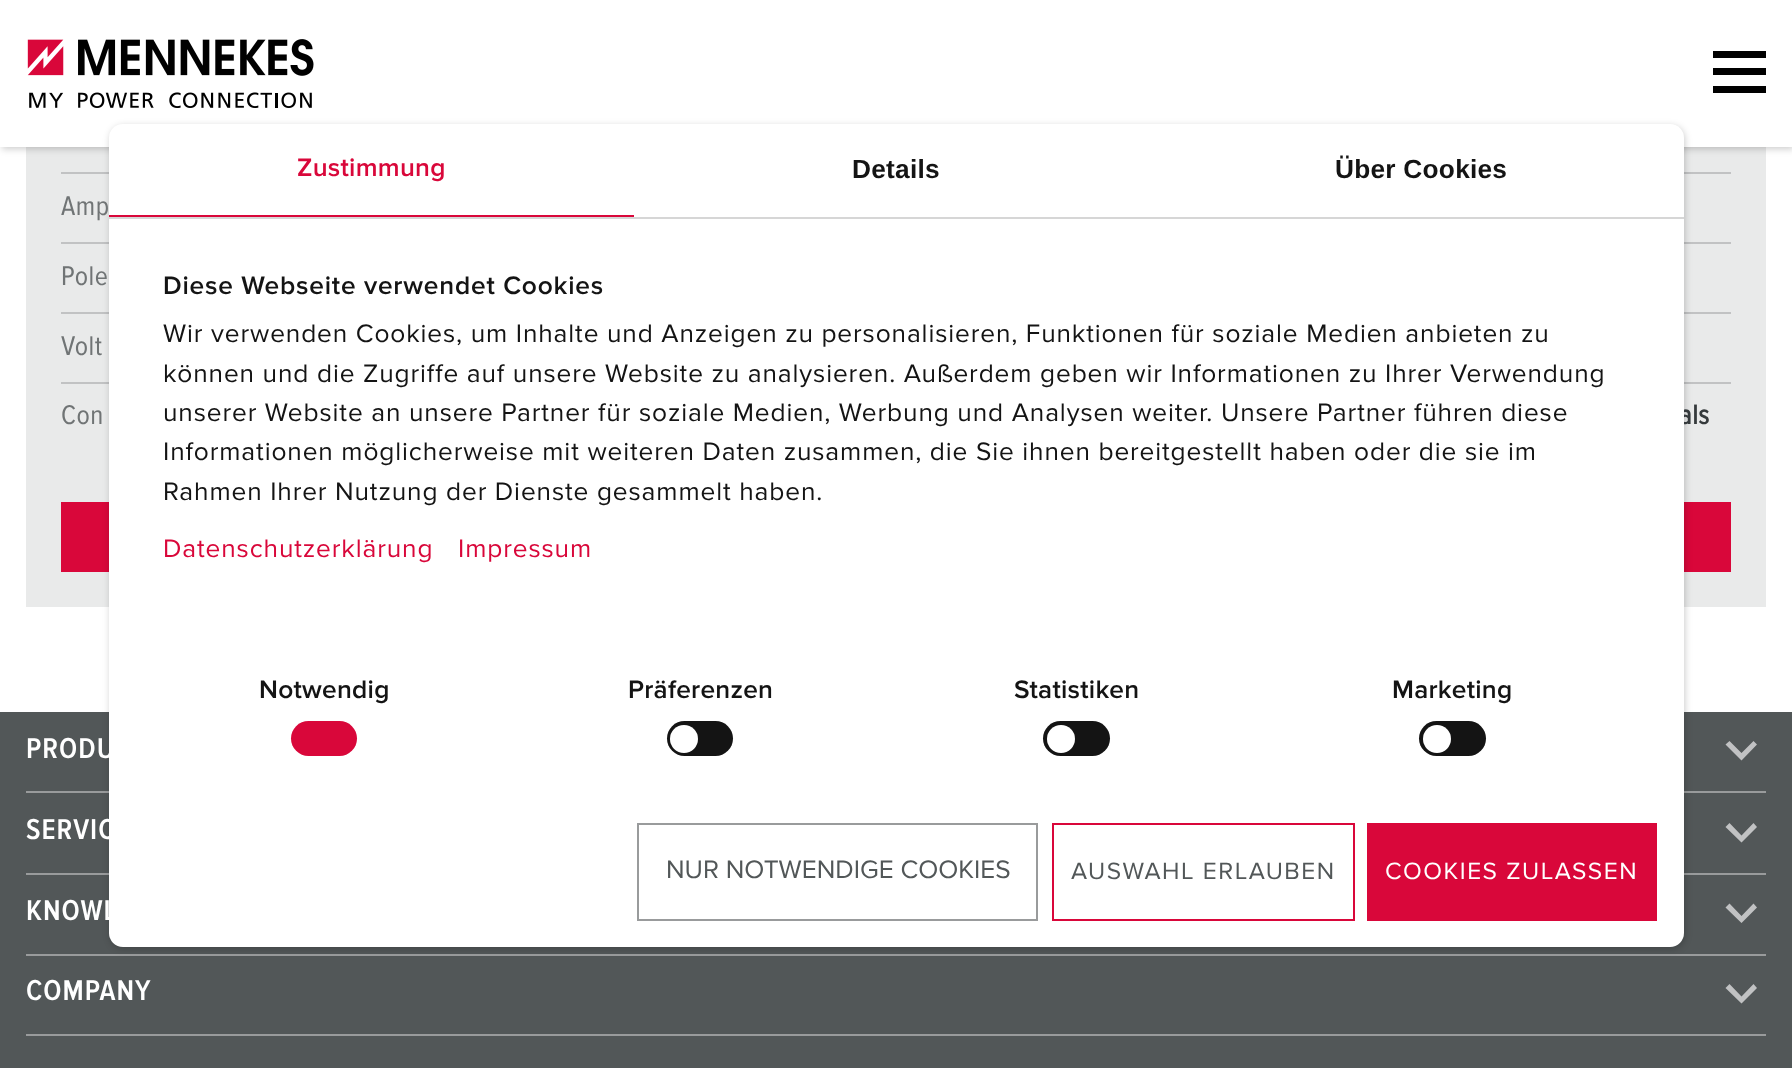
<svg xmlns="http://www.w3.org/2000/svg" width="1792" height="1068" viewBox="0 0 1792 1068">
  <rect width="100%" height="100%" fill="rgb(255,255,255)"/>
  <rect x="26" y="147" width="83" height="460" fill="rgb(233,234,234)"/>
  <rect x="1684" y="147" width="82" height="460" fill="rgb(233,234,234)"/>
  <rect x="2" y="2" width="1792" height="147" fill="rgba(0,0,0,0.2)" filter="blur(3.5px)"/>
  <rect x="0" y="0" width="1792" height="147" fill="rgb(255,255,255)"/>
  <rect x="61" y="172" width="48" height="2" fill="rgb(193,194,195)"/>
  <rect x="61" y="242" width="48" height="2" fill="rgb(193,194,195)"/>
  <rect x="61" y="312" width="48" height="2" fill="rgb(193,194,195)"/>
  <rect x="61" y="382" width="48" height="2" fill="rgb(193,194,195)"/>
  <rect x="61" y="502" width="48" height="70" fill="rgb(217,7,58)"/>
  <rect x="1684" y="172" width="47" height="2" fill="rgb(193,194,195)"/>
  <rect x="1684" y="242" width="47" height="2" fill="rgb(193,194,195)"/>
  <rect x="1684" y="312" width="47" height="2" fill="rgb(193,194,195)"/>
  <rect x="1684" y="382" width="47" height="2" fill="rgb(193,194,195)"/>
  <rect x="1684" y="502" width="47" height="70" fill="rgb(217,7,58)"/>
  <rect x="0" y="712" width="1792" height="356" fill="rgb(82,87,88)"/>
  <rect x="26" y="791" width="1740" height="2" fill="rgb(153,155,156)"/>
  <rect x="26" y="873" width="1740" height="2" fill="rgb(153,155,156)"/>
  <rect x="26" y="954" width="1740" height="2" fill="rgb(153,155,156)"/>
  <rect x="110" y="126" width="1575" height="823" rx="14" fill="rgba(0,0,0,0.2)" filter="blur(3.5px)"/>
  <text x="1679" y="424" font-family="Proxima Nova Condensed" font-size="28" font-weight="bold" letter-spacing="0.5" fill="rgb(53,58,60)">als</text>
  <rect x="109" y="124" width="1575" height="823" rx="14" fill="rgb(255,255,255)"/>
  <rect x="109" y="217" width="1575" height="2" fill="rgb(214,214,214)"/>
  <rect x="109" y="215" width="525" height="2" fill="rgb(217,7,58)"/>
  <text x="297" y="176" font-family="Proxima Nova" font-size="26.25" font-weight="600" letter-spacing="0.25" fill="rgb(217,7,58)">Zustimmung</text>
  <g font-family="Liberation Sans" font-size="26.25" font-weight="bold" letter-spacing="0.25" fill="rgb(20,20,20)">
    <text x="852" y="178">Details</text>
    <text x="1335" y="178">Über Cookies</text>
  </g>
  <text x="163" y="294" font-family="Proxima Nova" font-size="26.25" font-weight="600" letter-spacing="0.8" fill="rgb(20,20,20)">Diese Webseite verwendet Cookies</text>
  <g font-family="Proxima Nova" font-size="26.25" letter-spacing="0.88" fill="rgb(20,20,20)">
    <text>
      <tspan x="163" y="342">Wir verwenden Cookies, um Inhalte und Anzeigen zu personalisieren, Funktionen für soziale Medien anbieten zu</tspan>
      <tspan x="163" y="382">können und die Zugriffe auf unsere Website zu analysieren. Außerdem geben wir Informationen zu Ihrer Verwendung</tspan>
      <tspan x="163" y="421">unserer Website an unsere Partner für soziale Medien, Werbung und Analysen weiter. Unsere Partner führen diese</tspan>
      <tspan x="163" y="460">Informationen möglicherweise mit weiteren Daten zusammen, die Sie ihnen bereitgestellt haben oder die sie im</tspan>
      <tspan x="163" y="500">Rahmen Ihrer Nutzung der Dienste gesammelt haben.</tspan>
    </text>
  </g>
  <g font-family="Proxima Nova" font-size="26.25" letter-spacing="0.88" fill="rgb(217,7,58)">
    <text x="163" y="557">Datenschutzerklärung</text>
    <text x="458" y="557">Impressum</text>
  </g>
  <text x="259" y="698" font-family="Proxima Nova" font-size="26.25" font-weight="600" letter-spacing="0.25" fill="rgb(20,20,20)">Notwendig</text>
  <rect x="291" y="721" width="66" height="35" rx="17.5" fill="rgb(217,7,58)"/>
  <text x="628" y="698" font-family="Proxima Nova" font-size="26.25" font-weight="600" letter-spacing="0.25" fill="rgb(20,20,20)">Präferenzen</text>
  <rect x="667" y="721" width="66" height="35" rx="17.5" fill="rgb(20,20,20)"/>
  <circle cx="684" cy="739" r="14" fill="rgb(255,255,255)"/>
  <text x="1014" y="698" font-family="Proxima Nova" font-size="26.25" font-weight="600" letter-spacing="0.25" fill="rgb(20,20,20)">Statistiken</text>
  <rect x="1043" y="721" width="67" height="35" rx="17.5" fill="rgb(20,20,20)"/>
  <circle cx="1061" cy="739" r="14" fill="rgb(255,255,255)"/>
  <text x="1392" y="698" font-family="Proxima Nova" font-size="26.25" font-weight="600" letter-spacing="0.25" fill="rgb(20,20,20)">Marketing</text>
  <rect x="1419" y="721" width="67" height="35" rx="17.5" fill="rgb(20,20,20)"/>
  <circle cx="1437" cy="739" r="14" fill="rgb(255,255,255)"/>
  <rect x="638" y="824" width="399" height="96" fill="none" stroke="rgb(153,155,156)" stroke-width="2"/>
  <text x="666" y="878" font-family="Proxima Nova" font-size="26.25" fill="rgb(82,87,88)">NUR NOTWENDIGE COOKIES</text>
  <rect x="1053" y="824" width="301" height="96" fill="none" stroke="rgb(217,7,58)" stroke-width="2"/>
  <text x="1071" y="879" font-family="Proxima Nova" font-size="24.5" letter-spacing="1.5" fill="rgb(82,87,88)">AUSWAHL ERLAUBEN</text>
  <rect x="1367" y="823" width="290" height="98" fill="rgb(217,7,58)"/>
  <text x="1385" y="879" font-family="Proxima Nova" font-size="24.5" letter-spacing="1.5" fill="rgb(255,255,255)">COOKIES ZULASSEN</text>
  <image x="27" y="39" width="287" height="69" href="pic1.png"/>
  <rect x="1713" y="68" width="53" height="7" fill="rgb(0,0,0)"/>
  <rect x="1713" y="51" width="53" height="7" fill="rgb(0,0,0)"/>
  <rect x="1713" y="86" width="53" height="7" fill="rgb(0,0,0)"/>
  <g font-family="Proxima Nova Condensed" font-size="28" letter-spacing="0.5" fill="rgb(112,116,117)">
    <text x="61" y="215">Amp</text>
    <text x="61" y="285">Pole</text>
    <text x="61" y="355">Volt</text>
    <text x="61" y="424">Con</text>
  </g>
  <text x="26" y="758" font-family="Proxima Nova Condensed" font-size="29.75" font-weight="600" letter-spacing="1" fill="rgb(255,255,255)">PRODU</text>
  <path d="M1757 744.5L1753.5 741L1741.5 753L1729.5 741L1725.5 744.5L1741.5 760.5Z" fill="rgb(193,194,195)"/>
  <text x="26" y="839" font-family="Proxima Nova Condensed" font-size="29.75" font-weight="600" letter-spacing="1" fill="rgb(255,255,255)">SERVIC</text>
  <path d="M1757 827L1753.5 823L1741.5 835.5L1729.5 823L1725.5 827L1741.5 842.5Z" fill="rgb(193,194,195)"/>
  <text x="26" y="920" font-family="Proxima Nova Condensed" font-size="29.75" font-weight="600" letter-spacing="1" fill="rgb(255,255,255)">KNOWL</text>
  <path d="M1757 907.5L1753.5 903.5L1741.5 916L1729.5 903.5L1725.5 907.5L1741.5 923Z" fill="rgb(193,194,195)"/>
  <rect x="26" y="1034" width="1740" height="2" fill="rgb(153,155,156)"/>
  <text x="26" y="1000" font-family="Proxima Nova Condensed" font-size="29.75" font-weight="600" letter-spacing="1" fill="rgb(255,255,255)">COMPANY</text>
  <path d="M1757 988L1753.5 984L1741.5 996.5L1729.5 984L1725.5 988L1741.5 1003.5Z" fill="rgb(193,194,195)"/>
</svg>
